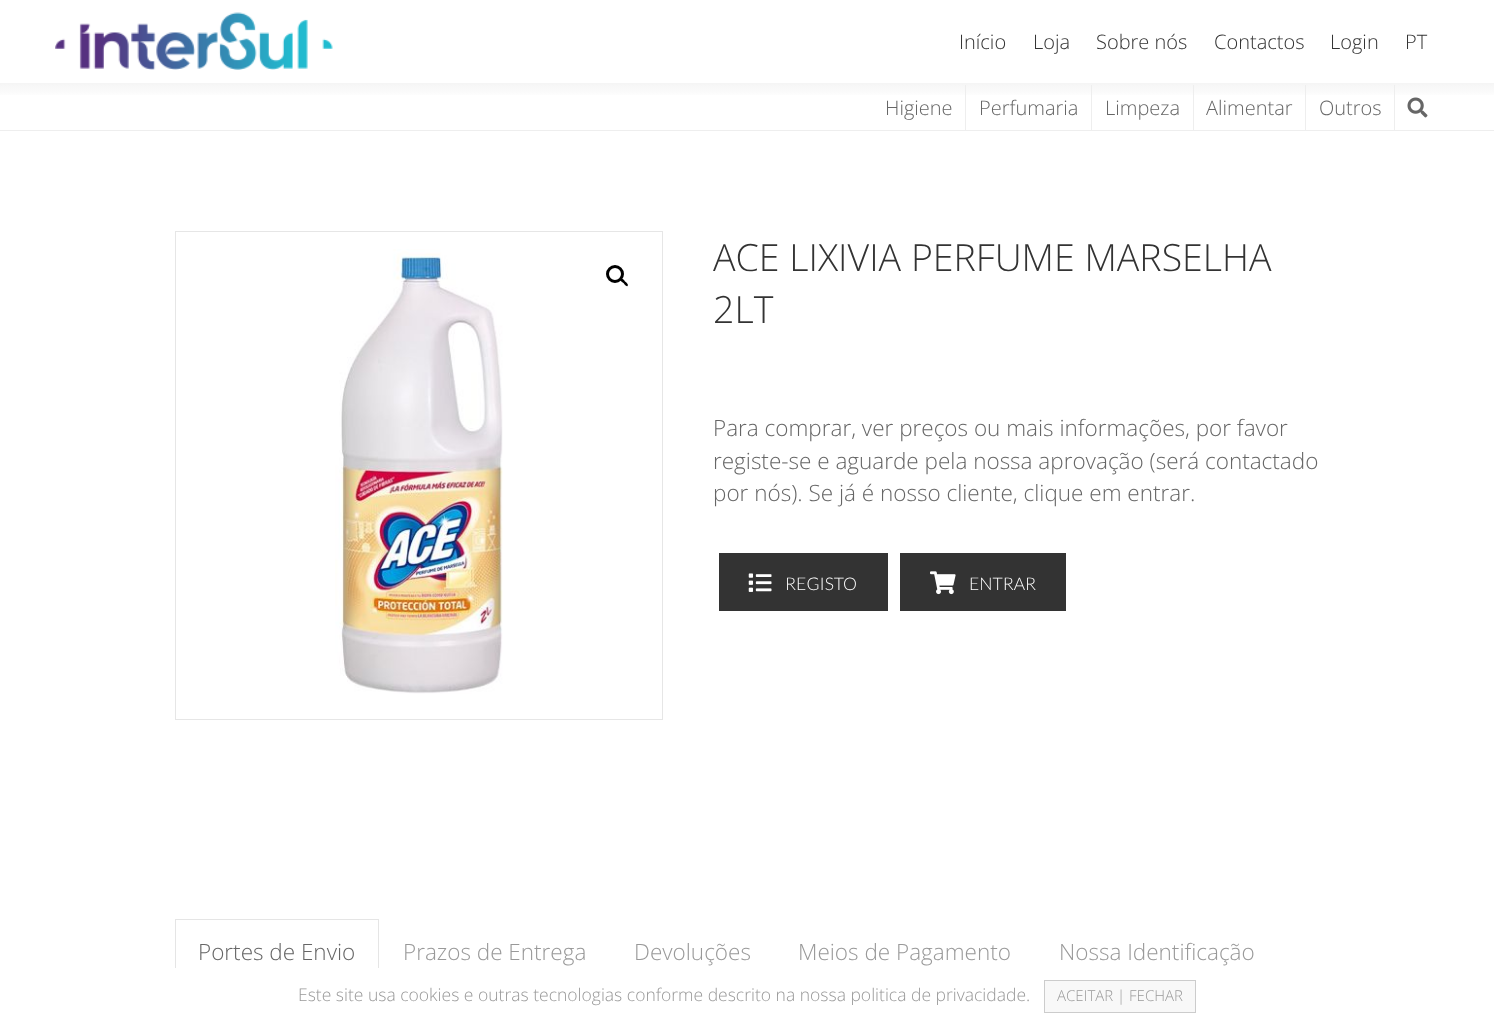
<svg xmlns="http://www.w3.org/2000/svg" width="1494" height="1021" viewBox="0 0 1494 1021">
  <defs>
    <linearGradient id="g1" gradientUnits="userSpaceOnUse" x1="748" y1="130" x2="748" y2="83"><stop offset="0.66" stop-color="rgb(255,255,255)"/><stop offset="1" stop-color="rgb(245,245,245)"/></linearGradient>
  </defs>
  <rect width="100%" height="100%" fill="rgb(255,255,255)"/>
  <image x="55" y="12" width="278" height="58" href="pic1.png"/>
  <g font-family="Open Sans" font-size="20" font-weight="300" fill="rgb(51,51,51)">
    <text x="959" y="49">Início</text>
    <text x="1033" y="49">Loja</text>
    <text x="1096" y="49">Sobre nós</text>
    <text x="1214" y="49">Contactos</text>
    <text x="1330" y="49">Login</text>
    <text x="1405" y="49">PT</text>
  </g>
  <rect x="0" y="83" width="1494" height="12" fill="url(#g1)"/>
  <rect x="0" y="130" width="1494" height="1" fill="rgb(238,238,238)"/>
  <text x="885" y="115" font-family="Open Sans" font-size="20" font-weight="300" fill="rgb(102,102,102)">Higiene</text>
  <rect x="965" y="85" width="1" height="45" fill="rgb(238,238,238)"/>
  <text x="979" y="115" font-family="Open Sans" font-size="20" font-weight="300" fill="rgb(102,102,102)">Perfumaria</text>
  <rect x="1091" y="85" width="1" height="45" fill="rgb(238,238,238)"/>
  <text x="1105" y="115" font-family="Open Sans" font-size="20" font-weight="300" fill="rgb(102,102,102)">Limpeza</text>
  <rect x="1193" y="85" width="1" height="45" fill="rgb(238,238,238)"/>
  <text x="1206" y="115" font-family="Open Sans" font-size="20" font-weight="300" fill="rgb(102,102,102)">Alimentar</text>
  <rect x="1305" y="85" width="1" height="45" fill="rgb(238,238,238)"/>
  <text x="1319" y="115" font-family="Open Sans" font-size="20" font-weight="300" fill="rgb(102,102,102)">Outros</text>
  <rect x="1394" y="85" width="1" height="45" fill="rgb(238,238,238)"/>
  <image x="1407" y="97" width="21" height="21" href="pic2.png"/>
  <rect x="175.5" y="231.5" width="487" height="488" fill="none" stroke="rgb(230,230,230)"/>
  <image x="335" y="249" width="168" height="445" href="pic3.png"/>
  <circle cx="615" cy="274" r="7.5" fill="none" stroke="rgb(0,0,0)" stroke-width="3"/>
  <path d="M620.5 278.5C622 277.5 624.5 280.5 625 281.5C626 282 629 284.5 627.5 286C626.5 287 624 284 623.5 283C622.5 282.5 619 280 620.5 278.5Z" fill="rgb(0,0,0)"/>
  <g font-family="Open Sans" font-size="37.5" font-weight="300" fill="rgb(51,51,51)">
    <text>
      <tspan x="713" y="271">ACE LIXIVIA PERFUME MARSELHA</tspan>
      <tspan x="713" y="323">2LT</tspan>
    </text>
  </g>
  <g font-family="Open Sans" font-size="22.5" font-weight="300" fill="rgb(102,102,102)">
    <text>
      <tspan x="713" y="436">Para comprar, ver preços ou mais informações, por favor</tspan>
      <tspan x="713" y="469">registe-se e aguarde pela nossa aprovação (será contactado</tspan>
      <tspan x="713" y="501">por nós). Se já é nosso cliente, clique em entrar.</tspan>
    </text>
  </g>
  <rect x="719" y="553" width="169" height="58" fill="rgb(51,51,51)"/>
  <image x="748" y="573" width="24" height="19" href="pic4.png"/>
  <text x="785" y="590" font-family="Lato" font-size="17.5" font-weight="300" fill="rgb(255,255,255)">REGISTO</text>
  <rect x="900" y="553" width="166" height="58" fill="rgb(51,51,51)"/>
  <image x="930" y="571" width="26" height="24" href="pic5.png"/>
  <text x="969" y="590" font-family="Lato" font-size="17.5" font-weight="300" fill="rgb(255,255,255)">ENTRAR</text>
  <rect x="175" y="919" width="204" height="1" fill="rgb(229,229,229)"/>
  <rect x="378" y="919" width="1" height="49" fill="rgb(229,229,229)"/>
  <rect x="175" y="919" width="1" height="49" fill="rgb(229,229,229)"/>
  <text x="198" y="960" font-family="Open Sans" font-size="22.5" font-weight="300" fill="rgb(102,102,102)">Portes de Envio</text>
  <g font-family="Open Sans" font-size="22.5" font-weight="300" fill="rgb(153,153,153)">
    <text x="403" y="960">Prazos de Entrega</text>
    <text x="634" y="960">Devoluções</text>
    <text x="798" y="960">Meios de Pagamento</text>
    <text x="1059" y="960">Nossa Identificação</text>
  </g>
  <text x="298" y="1001" font-family="Open Sans" font-size="17.5" font-weight="300" fill="rgb(153,153,153)">Este site usa cookies e outras tecnologias conforme descrito na nossa politica de privacidade.</text>
  <rect x="1044.5" y="980.5" width="151" height="32" fill="rgb(248,248,248)" stroke="rgb(204,204,204)"/>
  <text x="1057" y="1001" font-family="Open Sans" font-size="15" font-weight="300" fill="rgb(153,153,153)">ACEITAR | FECHAR</text>
</svg>
